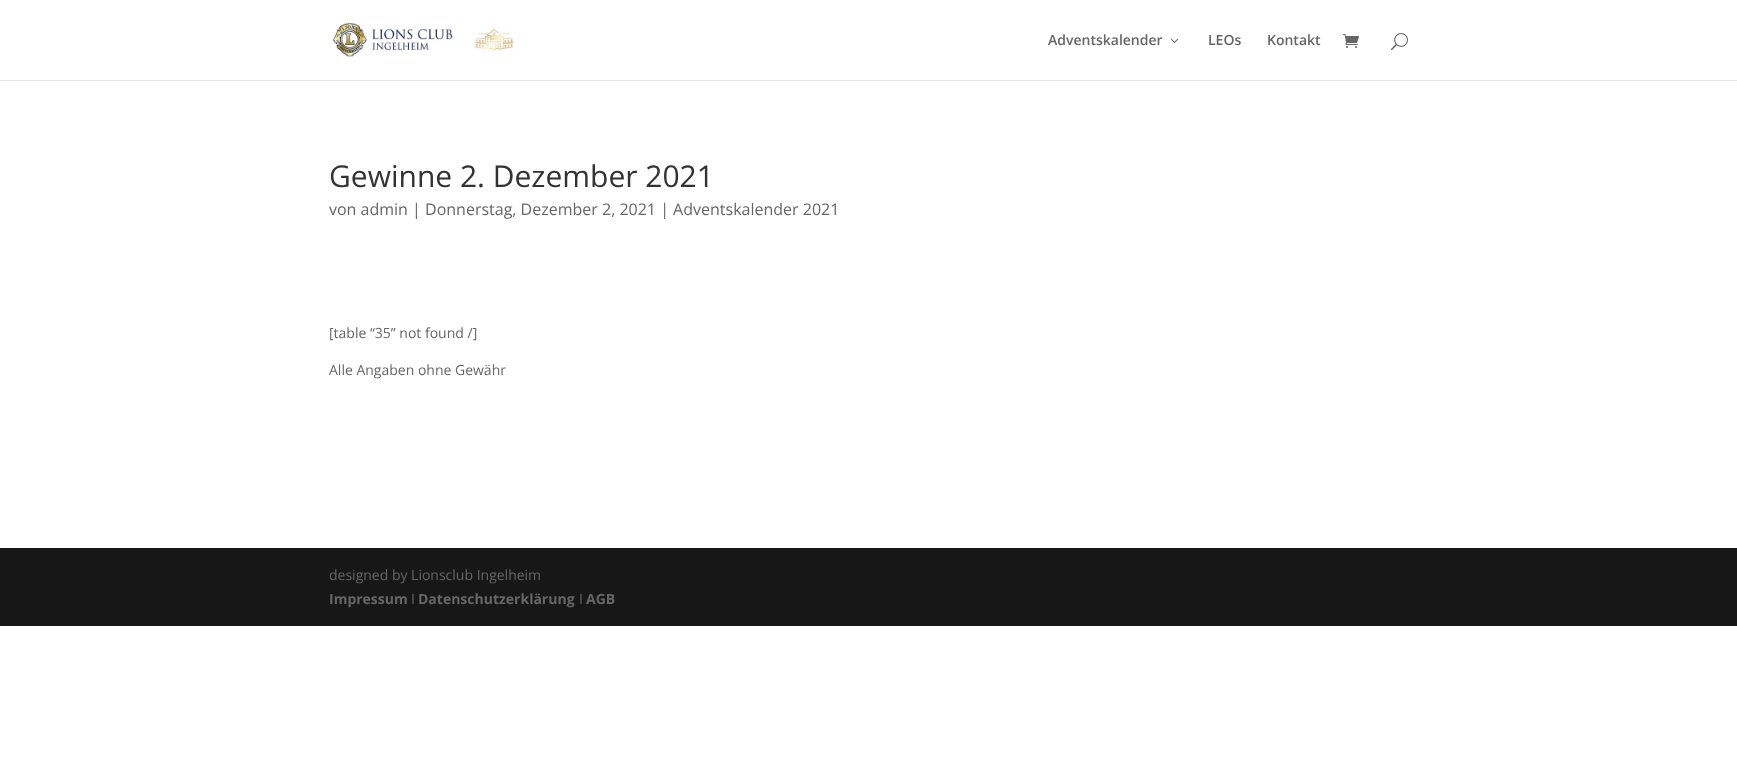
<svg xmlns="http://www.w3.org/2000/svg" width="1737" height="778" viewBox="0 0 1737 778">
  <rect width="100%" height="100%" fill="rgb(255,255,255)"/>
  <rect x="0" y="80" width="1737" height="1" fill="rgb(230,230,230)"/>
  <image x="332" y="23" width="182" height="35" href="pic1.png"/>
  <text x="1048" y="45" font-family="Open Sans" font-size="14" font-weight="600" fill="rgb(102,102,102)">Adventskalender</text>
  <image x="1170" y="38" width="9" height="5" href="pic2.png"/>
  <g font-family="Open Sans" font-size="14" font-weight="600" fill="rgb(102,102,102)">
    <text x="1208" y="45">LEOs</text>
    <text x="1267" y="45">Kontakt</text>
  </g>
  <image x="1343" y="34" width="16" height="14" href="pic3.png"/>
  <image x="1391" y="33" width="17" height="18" href="pic4.png"/>
  <text x="329" y="187" font-family="Open Sans" font-size="30" fill="rgb(51,51,51)">Gewinne 2. Dezember 2021</text>
  <text x="329" y="215" font-family="Open Sans" font-size="16" fill="rgb(102,102,102)">von admin | Donnerstag, Dezember 2, 2021 | Adventskalender 2021</text>
  <g font-family="Open Sans" font-size="14" fill="rgb(102,102,102)">
    <text x="329" y="338">[table “35” not found /]</text>
    <text x="329" y="375">Alle Angaben ohne Gewähr</text>
  </g>
  <rect x="0" y="548" width="1737" height="78" fill="rgb(23,23,23)"/>
  <text x="329" y="580" font-family="Open Sans" font-size="14" fill="rgb(102,102,102)">designed by Lionsclub Ingelheim</text>
  <text x="329" y="604" font-family="Open Sans" font-size="14" font-weight="bold" fill="rgb(102,102,102)">Impressum</text>
  <text x="411" y="604" font-family="Open Sans" font-size="14" fill="rgb(102,102,102)">I</text>
  <text x="418" y="604" font-family="Open Sans" font-size="14" font-weight="bold" fill="rgb(102,102,102)">Datenschutzerklärung</text>
  <text x="579" y="604" font-family="Open Sans" font-size="14" fill="rgb(102,102,102)">I</text>
  <text x="586" y="604" font-family="Open Sans" font-size="14" font-weight="bold" fill="rgb(102,102,102)">AGB</text>
</svg>
